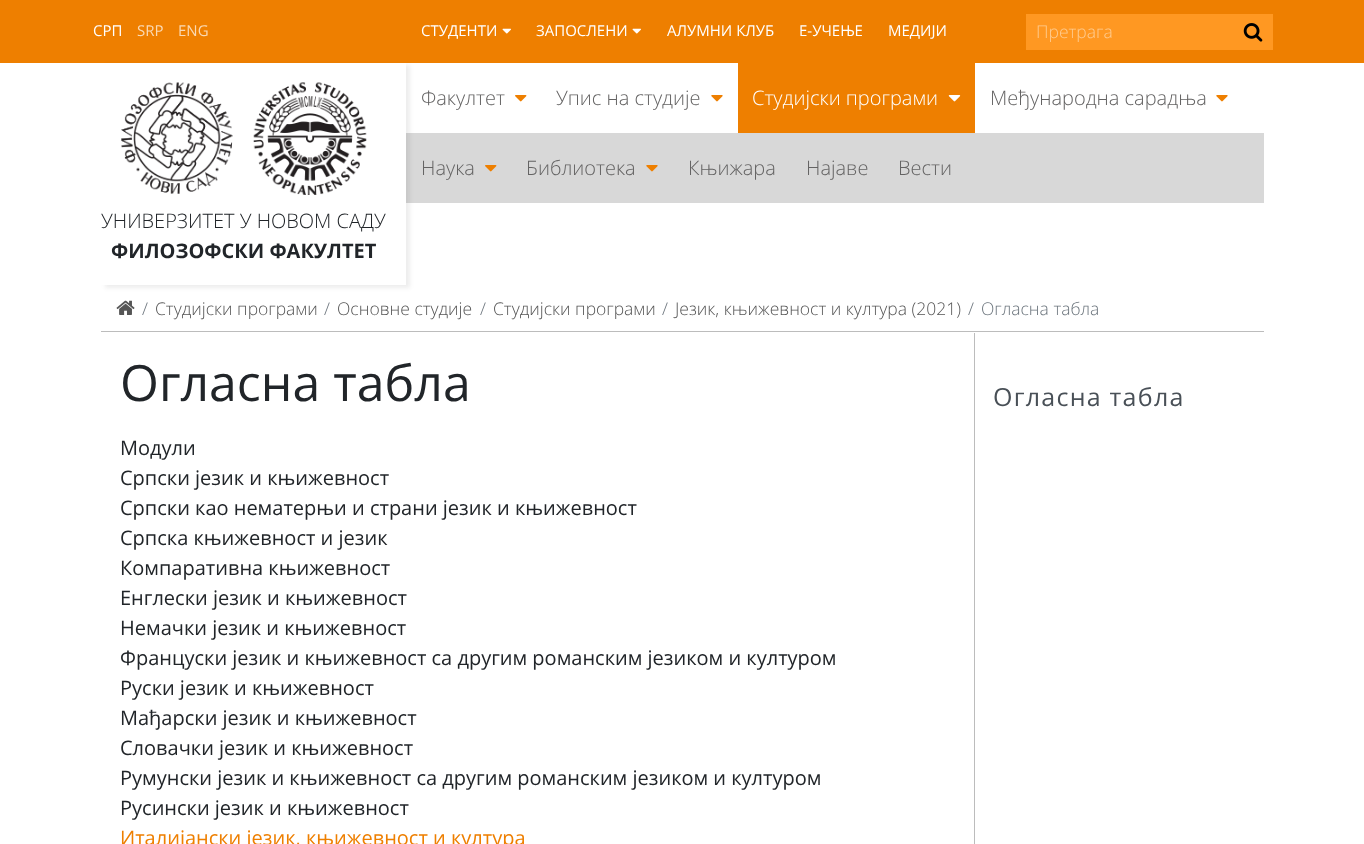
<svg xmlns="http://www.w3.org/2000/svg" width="1364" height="844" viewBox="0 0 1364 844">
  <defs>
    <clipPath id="clip1"><path d="M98 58H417V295H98ZM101 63H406V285H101Z" clip-rule="evenodd"/></clipPath>
  </defs>
  <rect width="100%" height="100%" fill="rgb(255,255,255)"/>
  <rect x="0" y="0" width="1364" height="63" fill="rgb(238,127,0)"/>
  <text x="93" y="36" font-family="Open Sans" font-size="15" fill="rgb(255,255,255)">СРП</text>
  <g font-family="Open Sans" font-size="15" fill="rgb(250,217,179)">
    <text x="137" y="36">SRP</text>
    <text x="178" y="36">ENG</text>
  </g>
  <text x="421" y="36" font-family="Open Sans" font-size="15" fill="rgb(255,255,255)">СТУДЕНТИ</text>
  <image x="502" y="28" width="9" height="6" href="pic1.png"/>
  <text x="536" y="36" font-family="Open Sans" font-size="15" fill="rgb(255,255,255)">ЗАПОСЛЕНИ</text>
  <image x="632" y="28" width="9" height="6" href="pic1.png"/>
  <g font-family="Open Sans" font-size="15" fill="rgb(255,255,255)">
    <text x="667" y="36">АЛУМНИ КЛУБ</text>
    <text x="799" y="36">Е-УЧЕЊЕ</text>
    <text x="888" y="36">МЕДИЈИ</text>
  </g>
  <rect x="1026" y="14" width="247" height="36" fill="rgb(255,152,34)"/>
  <text x="1036" y="38" font-family="Open Sans" font-size="17.5" font-weight="300" fill="rgb(255,204,145)">Претрага</text>
  <image x="1243" y="23" width="20" height="19" href="pic2.png"/>
  <text x="421" y="105" font-family="Open Sans" font-size="20" font-weight="300" fill="rgb(100,99,99)">Факултет</text>
  <image x="515" y="95" width="12" height="7" href="pic3.png"/>
  <text x="556" y="105" font-family="Open Sans" font-size="20" font-weight="300" fill="rgb(100,99,99)">Упис на студије</text>
  <image x="711" y="95" width="12" height="7" href="pic4.png"/>
  <rect x="738" y="63" width="237" height="70" fill="rgb(238,127,0)"/>
  <text x="752" y="105" font-family="Open Sans" font-size="20" font-weight="300" fill="rgb(255,255,255)">Студијски програми</text>
  <image x="948" y="95" width="13" height="7" href="pic5.png"/>
  <text x="990" y="105" font-family="Open Sans" font-size="20" font-weight="300" fill="rgb(100,99,99)">Међународна сарадња</text>
  <image x="1216" y="95" width="12" height="7" href="pic4.png"/>
  <rect x="406" y="133" width="858" height="70" fill="rgb(216,216,216)"/>
  <text x="421" y="175" font-family="Open Sans" font-size="20" font-weight="300" fill="rgb(100,99,99)">Наука</text>
  <image x="485" y="165" width="12" height="7" href="pic6.png"/>
  <text x="526" y="175" font-family="Open Sans" font-size="20" font-weight="300" fill="rgb(100,99,99)">Библиотека</text>
  <image x="646" y="165" width="12" height="7" href="pic7.png"/>
  <g font-family="Open Sans" font-size="20" font-weight="300" fill="rgb(100,99,99)">
    <text x="688" y="175">Књижара</text>
    <text x="806" y="175">Најаве</text>
    <text x="898" y="175">Вести</text>
  </g>
  <g clip-path="url(#clip1)">
    <rect x="105" y="65" width="305" height="223" fill="rgba(0,0,0,0.07)" filter="blur(2px)"/>
  </g>
  <image x="121" y="82" width="112" height="112" href="pic8.png"/>
  <image x="253" y="82" width="114" height="113" href="pic9.png"/>
  <text x="101" y="228" font-family="Open Sans" font-size="20" font-weight="300" fill="rgb(33,37,41)">УНИВЕРЗИТЕТ У НОВОМ САДУ</text>
  <text x="111" y="258" font-family="Open Sans" font-size="20" font-weight="bold" fill="rgb(33,37,41)">ФИЛОЗОФСКИ ФАКУЛТЕТ</text>
  <rect x="101" y="331" width="1163" height="1" fill="rgb(188,188,188)"/>
  <image x="116" y="300" width="19" height="15" href="pic10.png"/>
  <text x="142" y="315" font-family="Open Sans" font-size="17.5" font-weight="300" fill="rgb(108,117,125)">/</text>
  <text x="155" y="315" font-family="Open Sans" font-size="17.5" font-weight="300" fill="rgb(85,85,85)">Студијски програми</text>
  <text x="324" y="315" font-family="Open Sans" font-size="17.5" font-weight="300" fill="rgb(108,117,125)">/</text>
  <text x="337" y="315" font-family="Open Sans" font-size="17.5" font-weight="300" fill="rgb(85,85,85)">Основне студије</text>
  <text x="480" y="315" font-family="Open Sans" font-size="17.5" font-weight="300" fill="rgb(108,117,125)">/</text>
  <text x="493" y="315" font-family="Open Sans" font-size="17.5" font-weight="300" fill="rgb(85,85,85)">Студијски програми</text>
  <text x="662" y="315" font-family="Open Sans" font-size="17.5" font-weight="300" fill="rgb(108,117,125)">/</text>
  <text x="675" y="315" font-family="Open Sans" font-size="17.5" font-weight="300" fill="rgb(85,85,85)">Језик, књижевност и култура (2021)</text>
  <g font-family="Open Sans" font-size="17.5" font-weight="300" fill="rgb(108,117,125)">
    <text x="968" y="315">/</text>
    <text x="981" y="315">Огласна табла</text>
  </g>
  <text x="120" y="401" font-family="Open Sans" font-size="50" fill="rgb(33,37,41)">Огласна табла</text>
  <g font-family="Open Sans" font-size="20" fill="rgb(33,37,41)">
    <text>
      <tspan x="120" y="455">Модули</tspan>
      <tspan x="120" y="485">Српски језик и књижевност</tspan>
      <tspan x="120" y="515">Српски као нематерњи и страни језик и књижевност</tspan>
      <tspan x="120" y="545">Српска књижевност и језик</tspan>
      <tspan x="120" y="575">Компаративна књижевност</tspan>
      <tspan x="120" y="605">Енглески језик и књижевност</tspan>
      <tspan x="120" y="635">Немачки језик и књижевност</tspan>
      <tspan x="120" y="665">Француски језик и књижевност са другим романским језиком и културом</tspan>
      <tspan x="120" y="695">Руски језик и књижевност</tspan>
      <tspan x="120" y="725">Мађарски језик и књижевност</tspan>
      <tspan x="120" y="755">Словачки језик и књижевност</tspan>
      <tspan x="120" y="785">Румунски језик и књижевност са другим романским језиком и културом</tspan>
      <tspan x="120" y="815">Русински језик и књижевност</tspan>
    </text>
  </g>
  <text x="120" y="845" font-family="Open Sans" font-size="20" fill="rgb(238,127,0)">Италијански језик, књижевност и култура</text>
  <rect x="974" y="333" width="1" height="511" fill="rgb(188,188,188)"/>
  <text x="993" y="406" font-family="Open Sans" font-size="25" letter-spacing="1.25" fill="rgb(73,80,87)">Огласна табла</text>
</svg>
